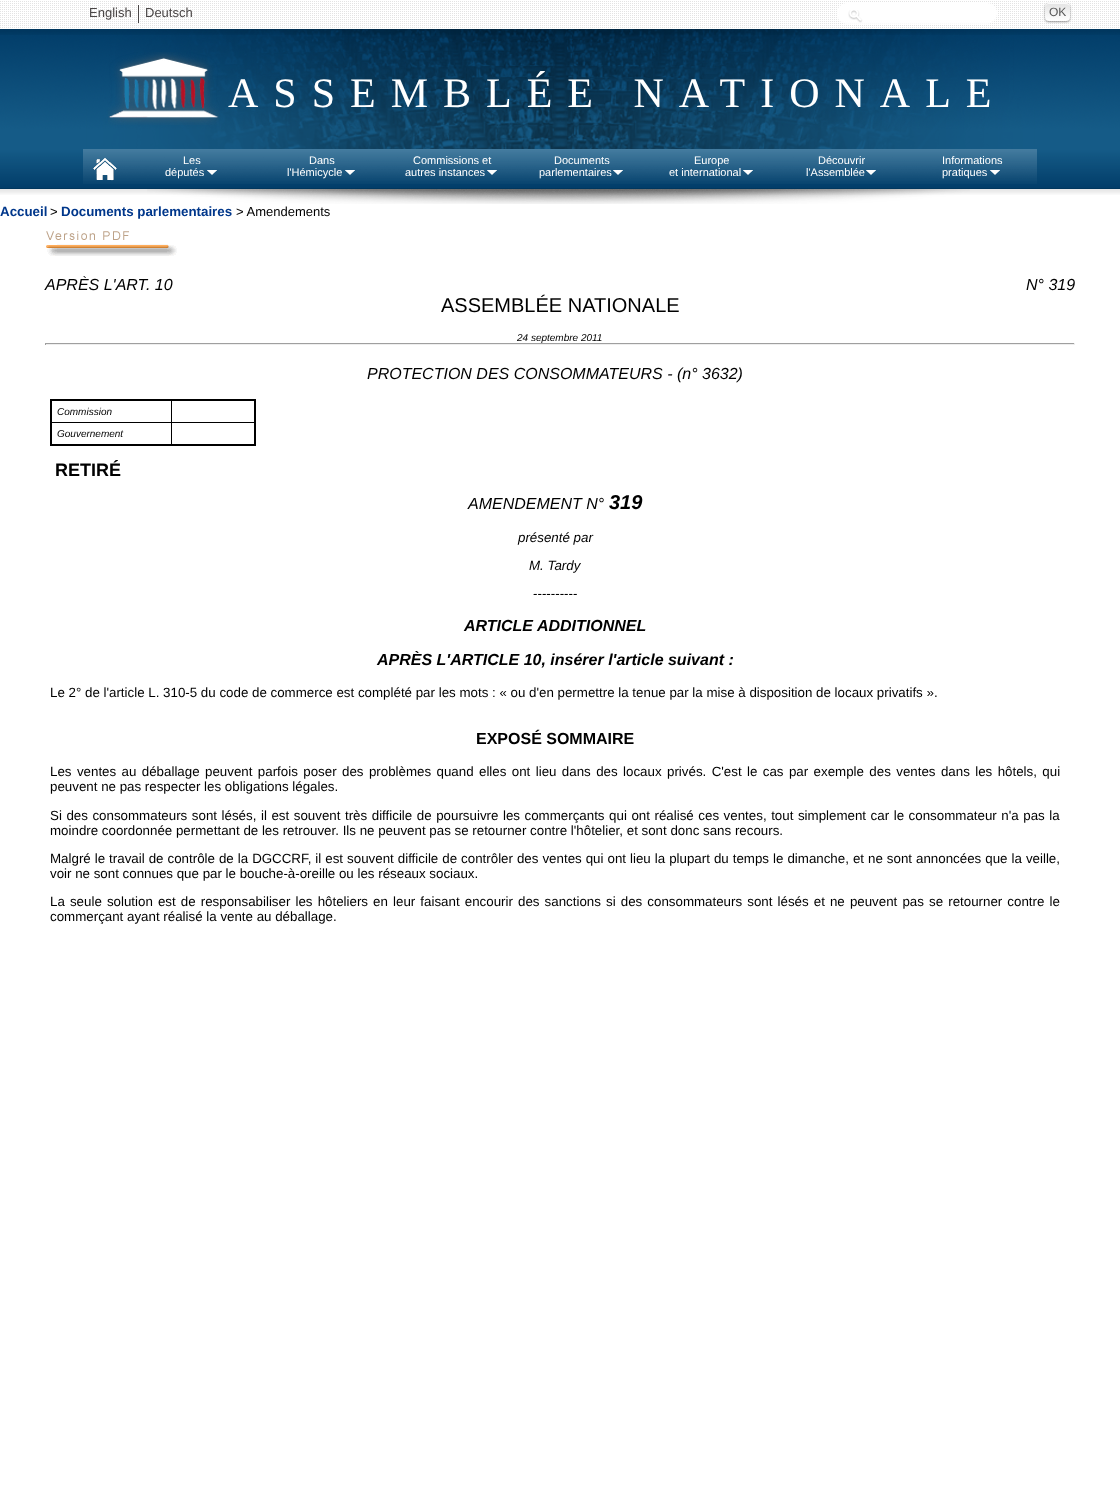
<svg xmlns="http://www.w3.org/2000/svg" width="1120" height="1488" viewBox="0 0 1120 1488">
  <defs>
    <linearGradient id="g1" gradientUnits="userSpaceOnUse" x1="1058" y1="3" x2="1058" y2="21"><stop offset="0" stop-color="rgb(227,227,227)"/><stop offset="1" stop-color="rgb(255,255,255)"/></linearGradient>
  </defs>
  <rect width="100%" height="100%" fill="rgb(255,255,255)"/>
  <image x="0" y="1" width="1119" height="28" href="pic1.png"/>
  <image x="0" y="29" width="1120" height="120" href="pic2.png"/>
  <text x="89" y="17" font-family="Liberation Sans" font-size="13" fill="rgb(74,70,70)">English</text>
  <rect x="138" y="5" width="1" height="18" fill="rgb(74,70,70)"/>
  <text x="145" y="17" font-family="Liberation Sans" font-size="13" fill="rgb(74,70,70)">Deutsch</text>
  <rect x="837" y="3" width="160" height="20" rx="10" fill="rgba(255,255,255,0.5)" filter="blur(1px)"/>
  <path d="M837 13C836 30 864 24 870 24H964C970 24 998 30 997 13C997 19 992 23 987 23H847C842 23 837 19 837 13Z" fill="rgba(255,255,255,0.7)"/>
  <rect x="837" y="3" width="160" height="20" rx="10" fill="rgb(255,255,255)"/>
  <rect x="1045" y="4" width="25" height="18" rx="4" fill="rgba(0,0,0,0.4)" filter="blur(1px)"/>
  <rect x="1045" y="3" width="25" height="18" rx="4" fill="url(#g1)"/>
  <path d="M1049 4H1063C1068.5 4 1070 5 1070 8C1070 3 1067.5 3 1063 3H1052C1047.5 3 1045 3 1045 8C1045 6 1046 4 1049 4Z" fill="rgba(255,255,255,0.8)"/>
  <text x="1049" y="16" font-family="Liberation Sans" font-size="12" fill="rgb(85,85,85)">OK</text>
  <image x="848" y="10" width="15" height="13" href="pic3.png"/>
  <image x="108" y="52" width="111" height="73" href="pic4.png"/>
  <text x="228" y="107" font-family="Liberation Serif" font-size="42" letter-spacing="15" fill="rgb(255,255,255)">ASSEMBLÉE NATIONALE</text>
  <image x="0" y="149" width="1120" height="40" href="pic15.png"/>
  <image x="83" y="149" width="954" height="35" href="pic5.png"/>
  <image x="93" y="158" width="24" height="23" href="pic6.png"/>
  <g font-family="Liberation Sans" font-size="11" fill="rgb(255,255,255)">
    <text x="183" y="164">Les</text>
    <text x="165" y="176">députés</text>
  </g>
  <image x="207" y="170" width="10" height="5" href="pic7.png"/>
  <g font-family="Liberation Sans" font-size="11" fill="rgb(255,255,255)">
    <text x="309" y="164">Dans</text>
    <text x="287" y="176">l'Hémicycle</text>
  </g>
  <image x="345" y="170" width="10" height="5" href="pic8.png"/>
  <g font-family="Liberation Sans" font-size="11" fill="rgb(255,255,255)">
    <text x="413" y="164">Commissions et</text>
    <text x="405" y="176">autres instances</text>
  </g>
  <image x="487" y="170" width="10" height="5" href="pic9.png"/>
  <g font-family="Liberation Sans" font-size="11" fill="rgb(255,255,255)">
    <text x="554" y="164">Documents</text>
    <text x="539" y="176">parlementaires</text>
  </g>
  <image x="613" y="170" width="10" height="5" href="pic10.png"/>
  <g font-family="Liberation Sans" font-size="11" fill="rgb(255,255,255)">
    <text x="694" y="164">Europe</text>
    <text x="669" y="176">et international</text>
  </g>
  <image x="743" y="170" width="10" height="5" href="pic11.png"/>
  <g font-family="Liberation Sans" font-size="11" fill="rgb(255,255,255)">
    <text x="818" y="164">Découvrir</text>
    <text x="806" y="176">l'Assemblée</text>
  </g>
  <image x="866" y="170" width="10" height="5" href="pic12.png"/>
  <g font-family="Liberation Sans" font-size="11" fill="rgb(255,255,255)">
    <text>
      <tspan x="942" y="164">Informations</tspan>
      <tspan x="942" y="176">pratiques</tspan>
    </text>
  </g>
  <image x="990" y="170" width="10" height="5" href="pic13.png"/>
  <image x="0" y="29" width="1120" height="6" href="pic14.png"/>
  <image x="147" y="189" width="823" height="15" href="pic17.png"/>
  <image x="0" y="188" width="1120" height="7" href="pic16.png"/>
  <text x="0" y="216" font-family="Liberation Sans" font-size="13.33" font-weight="bold" fill="rgb(0,55,139)">Accueil</text>
  <text x="50" y="216" font-family="Liberation Sans" font-size="13" fill="rgb(0,0,0)">&gt;</text>
  <text x="61" y="216" font-family="Liberation Sans" font-size="13.33" font-weight="bold" fill="rgb(0,55,139)">Documents parlementaires</text>
  <text x="236" y="216" font-family="Liberation Sans" font-size="13" fill="rgb(0,0,0)">&gt; Amendements</text>
  <image x="46" y="231" width="131" height="25" href="pic18.png"/>
  <g font-family="Liberation Sans" font-size="16" font-style="italic" fill="rgb(0,0,0)">
    <text x="45" y="290">APRÈS L'ART. 10</text>
    <text x="1026" y="290">N° 319</text>
  </g>
  <text x="441" y="312" font-family="Liberation Sans" font-size="20" fill="rgb(0,0,0)">ASSEMBLÉE NATIONALE</text>
  <text x="517" y="341" font-family="Liberation Sans" font-size="10" font-style="italic" fill="rgb(0,0,0)">24 septembre 2011</text>
  <rect x="45" y="343" width="1030" height="1" fill="rgb(159,159,159)"/>
  <rect x="1074" y="343" width="1" height="2" fill="rgb(238,238,238)"/>
  <rect x="45" y="344" width="1030" height="1" fill="rgb(238,238,238)"/>
  <rect x="45" y="343" width="1" height="2" fill="rgb(159,159,159)"/>
  <text x="367" y="379" font-family="Liberation Sans" font-size="16" font-style="italic" fill="rgb(0,0,0)">PROTECTION DES CONSOMMATEURS - (n° 3632)</text>
  <rect x="171" y="422" width="84" height="1" fill="rgb(0,0,0)"/>
  <rect x="171" y="422" width="1" height="24" fill="rgb(0,0,0)"/>
  <rect x="50" y="422" width="122" height="1" fill="rgb(0,0,0)"/>
  <rect x="171" y="400" width="1" height="23" fill="rgb(0,0,0)"/>
  <rect x="50" y="399" width="206" height="2" fill="rgb(0,0,0)"/>
  <rect x="254" y="399" width="2" height="47" fill="rgb(0,0,0)"/>
  <rect x="50" y="444" width="206" height="2" fill="rgb(0,0,0)"/>
  <rect x="50" y="399" width="2" height="47" fill="rgb(0,0,0)"/>
  <g font-family="Liberation Sans" font-size="10" font-style="italic" fill="rgb(0,0,0)">
    <text x="57" y="415">Commission</text>
    <text x="57" y="437">Gouvernement</text>
  </g>
  <text x="55" y="476" font-family="Liberation Sans" font-size="18" font-weight="bold" fill="rgb(0,0,0)">RETIRÉ</text>
  <text x="468" y="509" font-family="Liberation Sans" font-size="16" font-style="italic" fill="rgb(0,0,0)">AMENDEMENT N°</text>
  <text x="609" y="509" font-family="Liberation Sans" font-size="20" font-weight="bold" font-style="italic" fill="rgb(0,0,0)">319</text>
  <g font-family="Liberation Sans" font-size="13.33" font-style="italic" fill="rgb(0,0,0)">
    <text x="518" y="542">présenté par</text>
    <text x="529" y="570">M. Tardy</text>
  </g>
  <text x="533" y="598" font-family="Liberation Sans" font-size="13.33" fill="rgb(0,0,0)">----------</text>
  <g font-family="Liberation Sans" font-size="16" font-weight="bold" font-style="italic" fill="rgb(0,0,0)">
    <text x="464" y="631">ARTICLE ADDITIONNEL</text>
    <text x="377" y="665">APRÈS L'ARTICLE 10, insérer l'article suivant :</text>
  </g>
  <text x="50" y="697" font-family="Liberation Sans" font-size="13.33" fill="rgb(0,0,0)">Le 2° de l'article L. 310-5 du code de commerce est complété par les mots : « ou d'en permettre la tenue par la mise à disposition de locaux privatifs ».</text>
  <text x="476" y="744" font-family="Liberation Sans" font-size="16" font-weight="bold" fill="rgb(0,0,0)">EXPOSÉ SOMMAIRE</text>
  <g font-family="Liberation Sans" font-size="13.33" fill="rgb(0,0,0)">
    <text>
      <tspan x="50" y="776" word-spacing="1.7">Les ventes au déballage peuvent parfois poser des problèmes quand elles ont lieu dans des locaux privés. C'est le cas par exemple des ventes dans les hôtels, qui</tspan>
      <tspan x="50" y="791">peuvent ne pas respecter les obligations légales.</tspan>
    </text>
    <text>
      <tspan x="50" y="820" word-spacing="0.85">Si des consommateurs sont lésés, il est souvent très difficile de poursuivre les commerçants qui ont réalisé ces ventes, tout simplement car le consommateur n'a pas la</tspan>
      <tspan x="50" y="835">moindre coordonnée permettant de les retrouver. Ils ne peuvent pas se retourner contre l'hôtelier, et sont donc sans recours.</tspan>
    </text>
    <text>
      <tspan x="50" y="863" word-spacing="0.3">Malgré le travail de contrôle de la DGCCRF, il est souvent difficile de contrôler des ventes qui ont lieu la plupart du temps le dimanche, et ne sont annoncées que la veille,</tspan>
      <tspan x="50" y="878">voir ne sont connues que par le bouche-à-oreille ou les réseaux sociaux.</tspan>
    </text>
    <text>
      <tspan x="50" y="906" word-spacing="1.4">La seule solution est de responsabiliser les hôteliers en leur faisant encourir des sanctions si des consommateurs sont lésés et ne peuvent pas se retourner contre le</tspan>
      <tspan x="50" y="921">commerçant ayant réalisé la vente au déballage.</tspan>
    </text>
  </g>
</svg>
